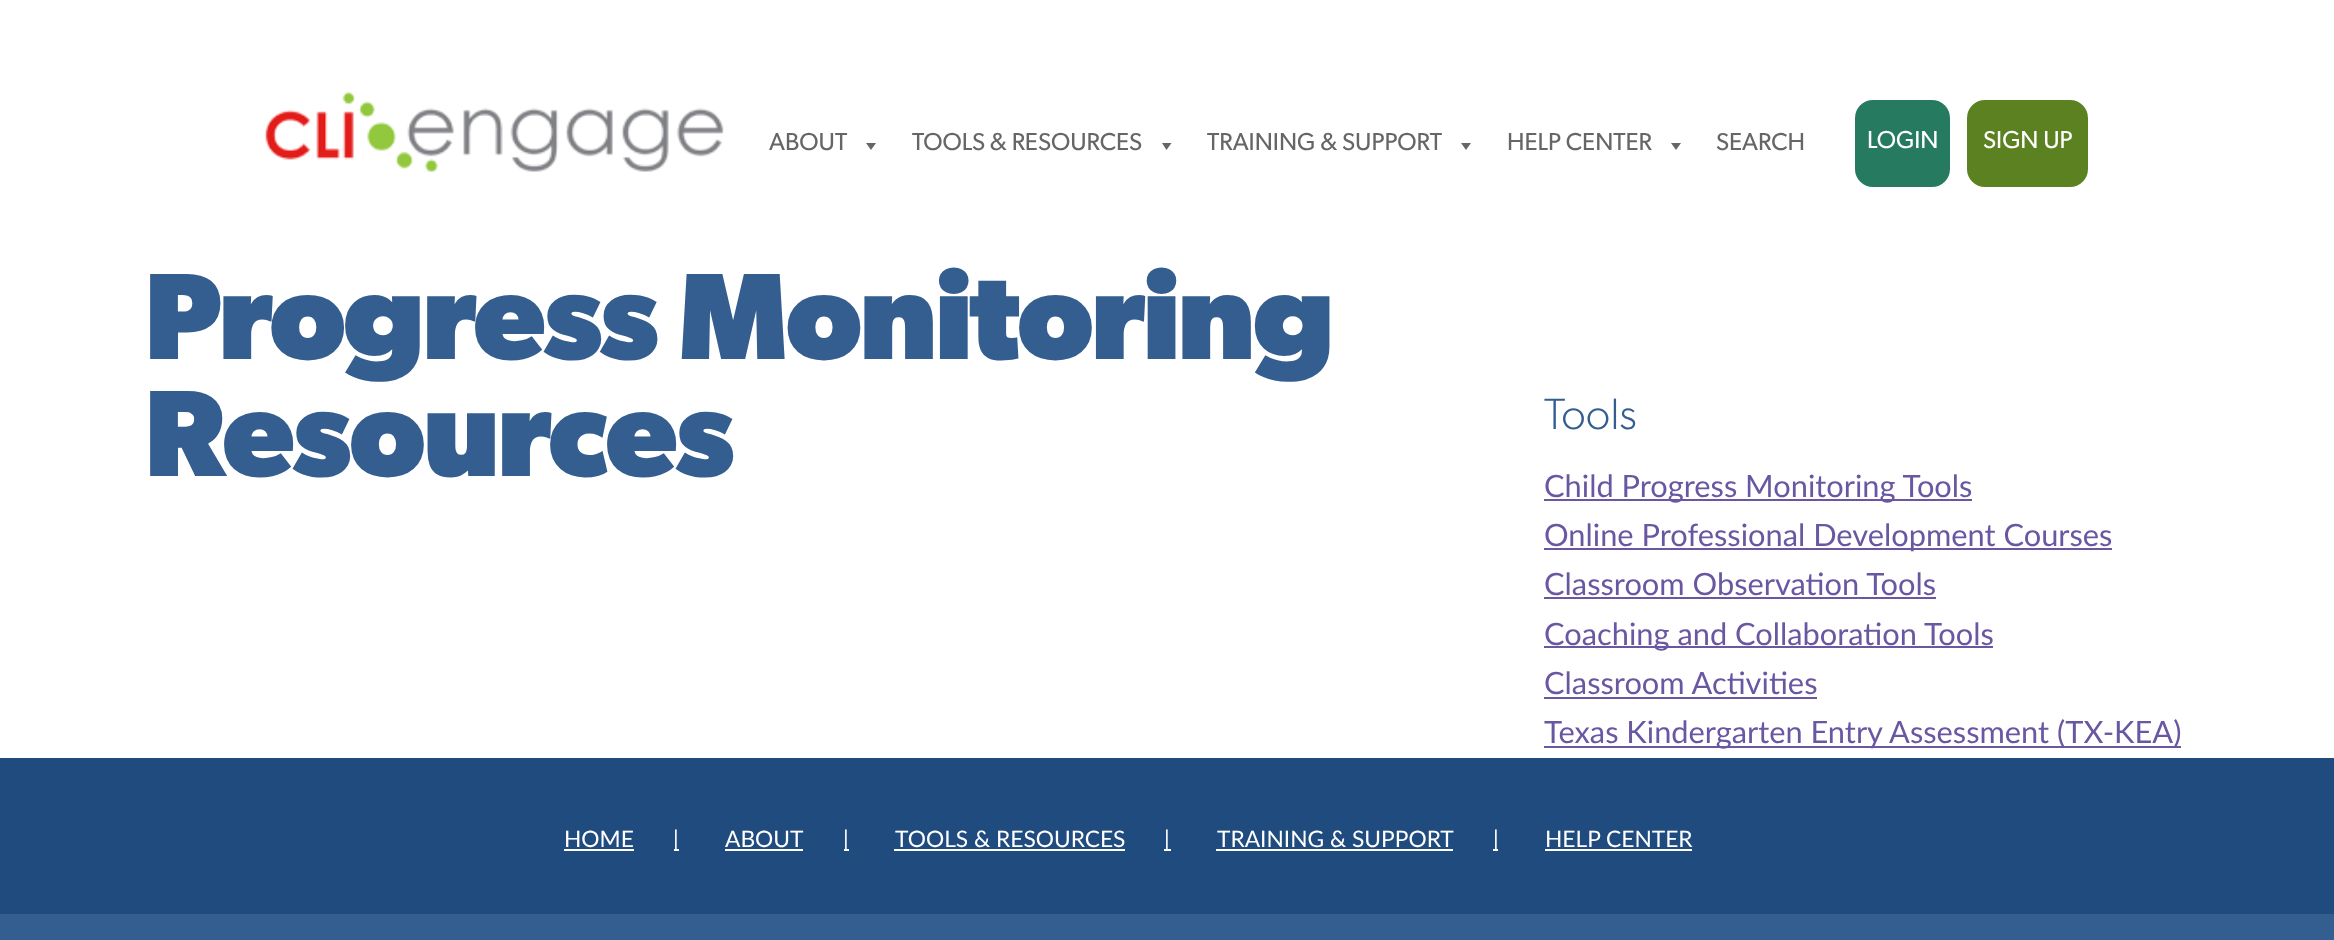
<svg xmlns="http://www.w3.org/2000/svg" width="2334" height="940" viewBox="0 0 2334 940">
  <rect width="100%" height="100%" fill="rgb(255,255,255)"/>
  <image x="265" y="92" width="459" height="80" href="pic1.png"/>
  <text x="769" y="150" font-family="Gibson" font-size="24.5" fill="rgb(102,102,102)">ABOUT</text>
  <path d="M876 143L871 150L866 143Z" fill="rgb(102,102,102)"/>
  <text x="912" y="150" font-family="Gibson" font-size="24.5" fill="rgb(102,102,102)">TOOLS &amp; RESOURCES</text>
  <path d="M1171.5 143L1166.5 150L1162 143Z" fill="rgb(102,102,102)"/>
  <text x="1207" y="150" font-family="Gibson" font-size="24.5" fill="rgb(102,102,102)">TRAINING &amp; SUPPORT</text>
  <path d="M1471 143L1466 150L1461 143Z" fill="rgb(102,102,102)"/>
  <text x="1507" y="150" font-family="Gibson" font-size="24.5" fill="rgb(102,102,102)">HELP CENTER</text>
  <path d="M1681 143L1676 150L1671 143Z" fill="rgb(102,102,102)"/>
  <text x="1716" y="150" font-family="Gibson" font-size="24.5" fill="rgb(102,102,102)">SEARCH</text>
  <rect x="1855" y="100" width="95" height="87" rx="18" fill="rgb(37,122,95)"/>
  <text x="1867" y="148" font-family="Gibson" font-size="24.5" fill="rgb(255,255,255)">LOGIN</text>
  <rect x="1967" y="100" width="121" height="87" rx="18" fill="rgb(91,129,32)"/>
  <text x="1983" y="148" font-family="Gibson" font-size="24.5" fill="rgb(255,255,255)">SIGN UP</text>
  <g font-family="Gibson" font-size="123.25" font-weight="bold" letter-spacing="-2.6" fill="rgb(52,94,143)">
    <text>
      <tspan x="144" y="359">Progress Monitoring</tspan>
      <tspan x="144" y="476">Resources</tspan>
    </text>
  </g>
  <text x="1544" y="429" font-family="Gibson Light" font-size="44" font-weight="300" fill="rgb(52,94,143)">Tools</text>
  <rect x="1544" y="499" width="428" height="2" fill="rgb(106,87,162)"/>
  <text x="1544" y="497" font-family="Lato" font-size="30.8" fill="rgb(106,87,162)">Child Progress Monitoring Tools</text>
  <rect x="1544" y="548" width="568" height="2" fill="rgb(106,87,162)"/>
  <g font-family="Lato" font-size="30.8" fill="rgb(106,87,162)">
    <text>
      <tspan x="1544" y="546">Online Professional Development Courses</tspan>
      <tspan x="1544" y="595">Classroom Observation Tools</tspan>
    </text>
  </g>
  <rect x="1544" y="597" width="392" height="2" fill="rgb(106,87,162)"/>
  <rect x="1544" y="646" width="449" height="2" fill="rgb(106,87,162)"/>
  <g font-family="Lato" font-size="30.8" fill="rgb(106,87,162)">
    <text>
      <tspan x="1544" y="645">Coaching and Collaboration Tools</tspan>
      <tspan x="1544" y="694">Classroom Activities</tspan>
    </text>
  </g>
  <rect x="1544" y="697" width="273" height="2" fill="rgb(106,87,162)"/>
  <rect x="1544" y="746" width="637" height="2" fill="rgb(106,87,162)"/>
  <text x="1544" y="743" font-family="Lato" font-size="30.8" fill="rgb(106,87,162)">Texas Kindergarten Entry Assessment (TX-KEA)</text>
  <rect x="0" y="758" width="2334" height="156" fill="rgb(32,75,126)"/>
  <text x="564" y="847" font-family="Lato" font-size="22.75" fill="rgb(255,255,255)">HOME</text>
  <rect x="564" y="849" width="70" height="2" fill="rgb(255,255,255)"/>
  <rect x="674" y="849" width="5" height="2" fill="rgb(255,255,255)"/>
  <g font-family="Lato" font-size="22.75" fill="rgb(255,255,255)">
    <text x="673" y="847">|</text>
    <text x="725" y="847">ABOUT</text>
  </g>
  <rect x="725" y="849" width="78" height="2" fill="rgb(255,255,255)"/>
  <rect x="844" y="849" width="5" height="2" fill="rgb(255,255,255)"/>
  <g font-family="Lato" font-size="22.75" fill="rgb(255,255,255)">
    <text x="843" y="847">|</text>
    <text x="895" y="847">TOOLS &amp; RESOURCES</text>
  </g>
  <rect x="894" y="849" width="231" height="2" fill="rgb(255,255,255)"/>
  <rect x="1164" y="849" width="7" height="2" fill="rgb(255,255,255)"/>
  <g font-family="Lato" font-size="22.75" fill="rgb(255,255,255)">
    <text x="1164" y="847">|</text>
    <text x="1217" y="847">TRAINING &amp; SUPPORT</text>
  </g>
  <rect x="1216" y="849" width="237" height="2" fill="rgb(255,255,255)"/>
  <rect x="1493" y="849" width="5" height="2" fill="rgb(255,255,255)"/>
  <g font-family="Lato" font-size="22.75" fill="rgb(255,255,255)">
    <text x="1493" y="847">|</text>
    <text x="1545" y="847">HELP CENTER</text>
  </g>
  <rect x="1545" y="849" width="147" height="2" fill="rgb(255,255,255)"/>
  <rect x="0" y="914" width="2334" height="26" fill="rgb(52,94,143)"/>
</svg>
